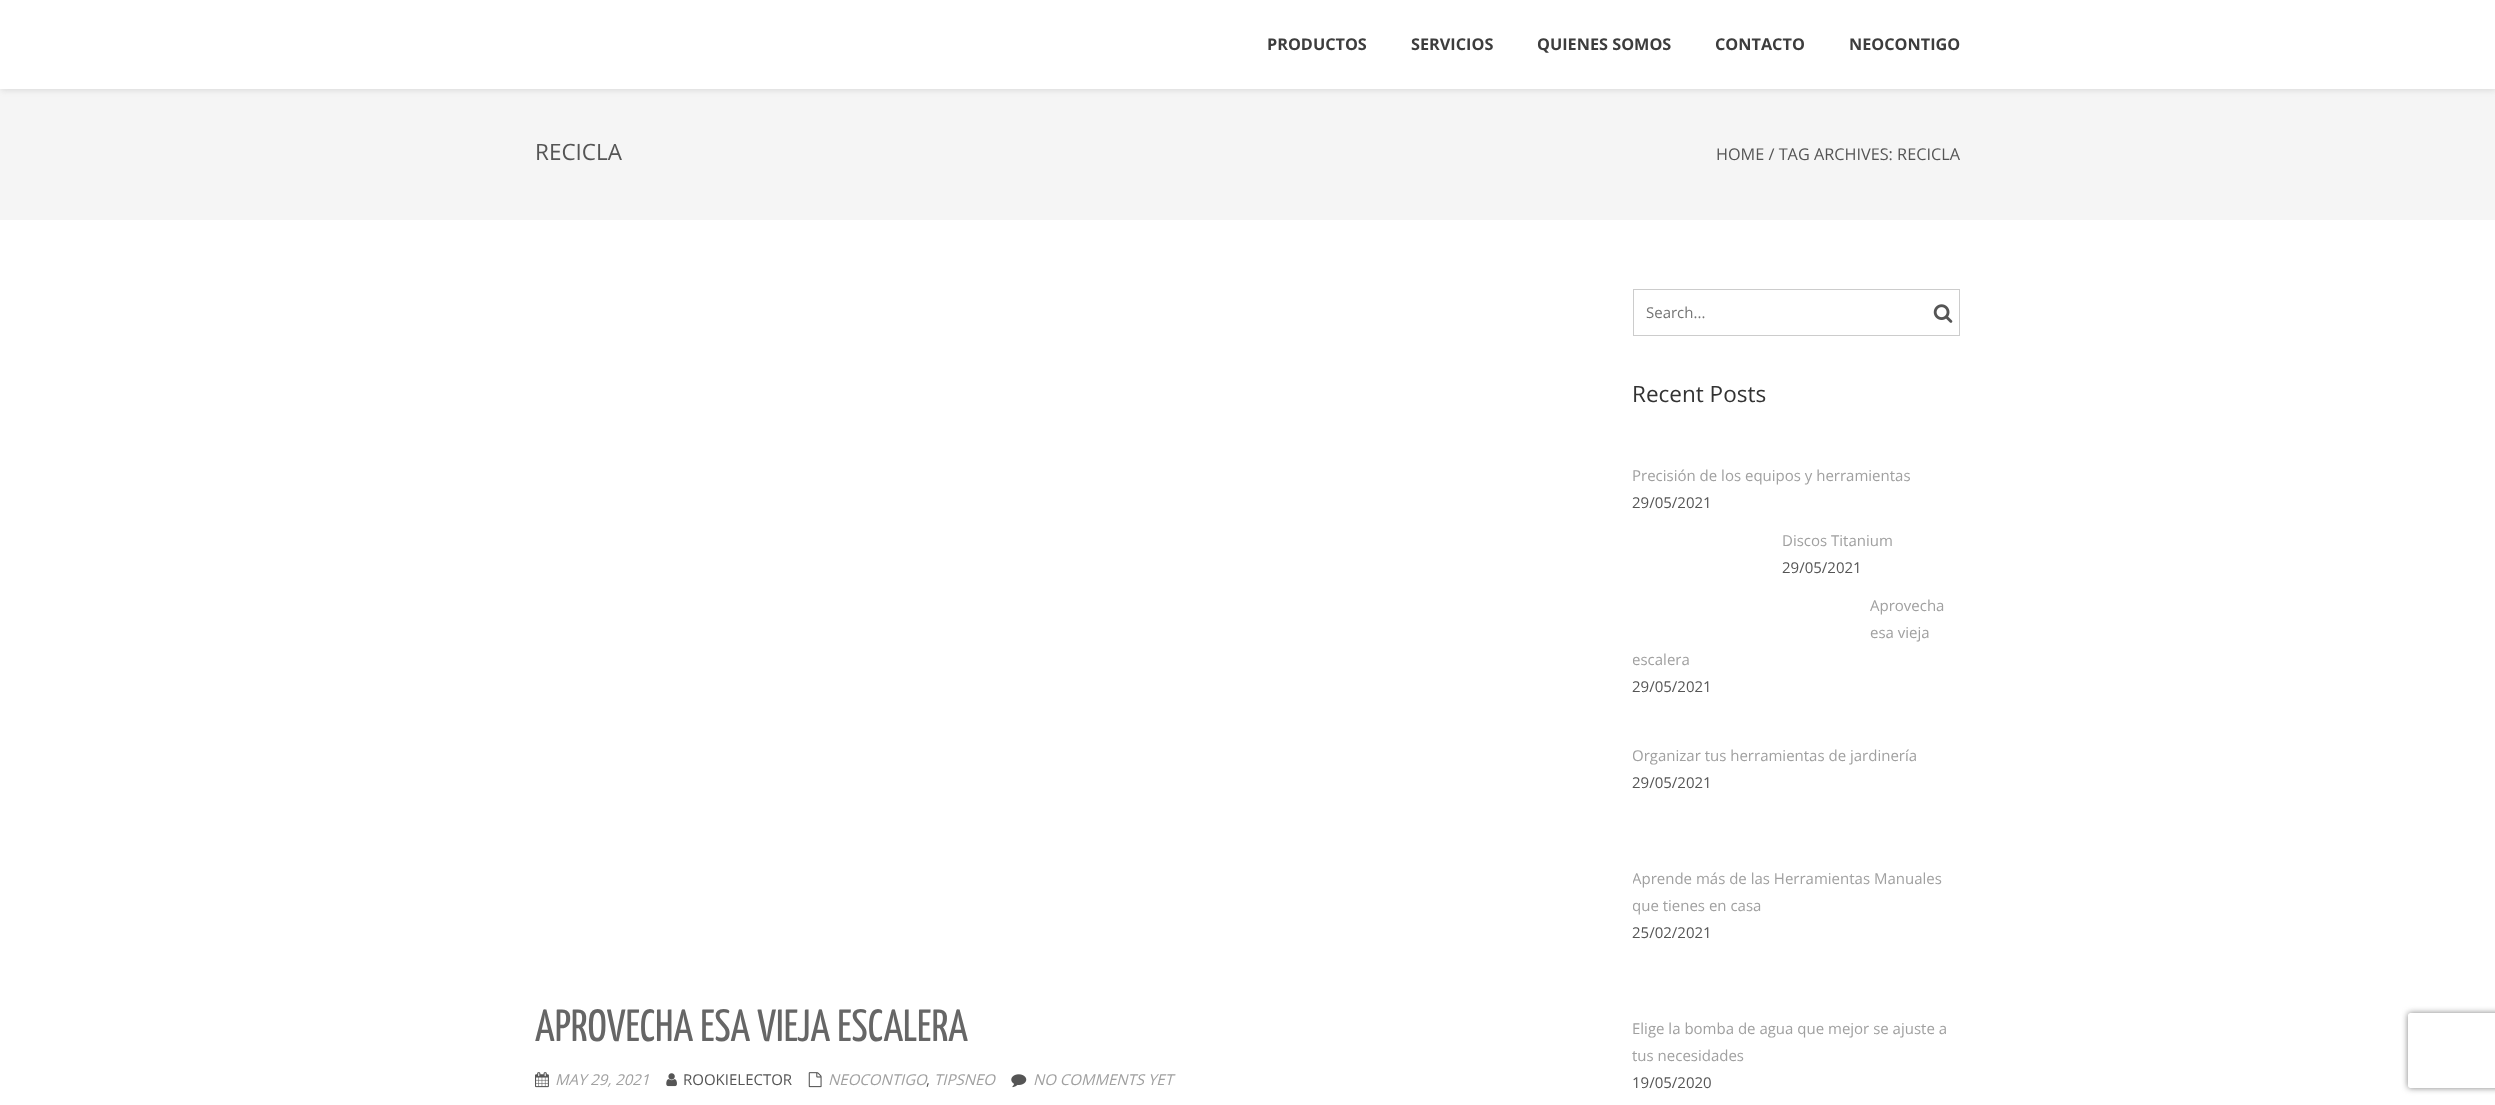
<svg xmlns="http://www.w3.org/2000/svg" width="2495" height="1105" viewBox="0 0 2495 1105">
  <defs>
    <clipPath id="clip1"><rect x="1633" y="593" width="327" height="108"/></clipPath>
    <clipPath id="clip2"><rect x="1633" y="713" width="327" height="83"/></clipPath>
    <clipPath id="clip3"><rect x="1633" y="808" width="327" height="138"/></clipPath>
    <clipPath id="clip4"><path d="M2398 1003H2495V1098H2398ZM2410.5 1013H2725.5C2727 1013 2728 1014 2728 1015.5V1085.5C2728 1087 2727 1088 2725.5 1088H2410.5C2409 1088 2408 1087 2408 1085.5V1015.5C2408 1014 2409 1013 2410.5 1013Z" clip-rule="evenodd"/></clipPath>
  </defs>
  <rect width="100%" height="100%" fill="rgb(255,255,255)"/>
  <rect x="0" y="89" width="2495" height="131" fill="rgb(245,245,245)"/>
  <rect x="1" y="1" width="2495" height="89" fill="rgba(100,100,100,0.2)" filter="blur(3px)"/>
  <rect x="0" y="0" width="2495" height="89" fill="rgb(255,255,255)"/>
  <g font-family="Open Sans" font-size="16.25" font-weight="bold" fill="rgb(61,61,61)">
    <text x="1267" y="50">PRODUCTOS</text>
    <text x="1411" y="50">SERVICIOS</text>
    <text x="1537" y="50">QUIENES SOMOS</text>
    <text x="1715" y="50">CONTACTO</text>
    <text x="1849" y="50">NEOCONTIGO</text>
  </g>
  <text x="535" y="160" font-family="Open Sans" font-size="22.5" fill="rgb(85,85,85)">RECICLA</text>
  <text x="1716" y="160" font-family="Open Sans" font-size="16.25" fill="rgb(85,85,85)">HOME / TAG ARCHIVES: RECICLA</text>
  <text x="535" y="1041" font-family="Yanone Kaffeesatz" font-size="45" font-weight="200" fill="rgb(102,102,102)">APROVECHA ESA VIEJA ESCALERA</text>
  <image x="535" y="1072" width="14" height="16" href="pic1.png"/>
  <text x="555" y="1085" font-family="Open Sans" font-size="15" font-style="italic" fill="rgb(160,160,160)">MAY 29, 2021</text>
  <image x="666" y="1073" width="11" height="14" href="pic2.png"/>
  <text x="683" y="1085" font-family="Open Sans" font-size="15" fill="rgb(85,85,85)">ROOKIELECTOR</text>
  <image x="808" y="1072" width="14" height="16" href="pic3.png"/>
  <text x="828" y="1085" font-family="Open Sans" font-size="15" font-style="italic" fill="rgb(160,160,160)">NEOCONTIGO</text>
  <text x="926" y="1085" font-family="Open Sans" font-size="15" fill="rgb(85,85,85)">,</text>
  <text x="934" y="1085" font-family="Open Sans" font-size="15" font-style="italic" fill="rgb(160,160,160)">TIPSNEO</text>
  <image x="1011" y="1074" width="16" height="14" href="pic4.png"/>
  <text x="1033" y="1085" font-family="Open Sans" font-size="15" font-style="italic" fill="rgb(160,160,160)">NO COMMENTS YET</text>
  <rect x="1633.5" y="289.5" width="326" height="46" fill="none" stroke="rgb(204,204,204)"/>
  <text x="1646" y="318" font-family="Open Sans" font-size="15" fill="rgb(117,117,117)">Search...</text>
  <image x="1933" y="304" width="20" height="19" href="pic5.png"/>
  <text x="1632" y="402" font-family="Open Sans" font-size="22.5" fill="rgb(51,51,51)">Recent Posts</text>
  <text x="1632" y="481" font-family="Open Sans" font-size="15" fill="rgb(160,160,160)">Precisión de los equipos y herramientas</text>
  <text x="1632" y="508" font-family="Open Sans" font-size="15" fill="rgb(85,85,85)">29/05/2021</text>
  <text x="1782" y="546" font-family="Open Sans" font-size="15" fill="rgb(160,160,160)">Discos Titanium</text>
  <text x="1782" y="573" font-family="Open Sans" font-size="15" fill="rgb(85,85,85)">29/05/2021</text>
  <g font-family="Open Sans" font-size="15" fill="rgb(160,160,160)">
    <text>
      <tspan x="1870" y="611">Aprovecha</tspan>
      <tspan x="1870" y="638">esa vieja</tspan>
    </text>
  </g>
  <g clip-path="url(#clip1)">
    <text x="1632" y="665" font-family="Open Sans" font-size="15" fill="rgb(160,160,160)">escalera</text>
  </g>
  <text x="1632" y="692" font-family="Open Sans" font-size="15" fill="rgb(85,85,85)">29/05/2021</text>
  <g clip-path="url(#clip2)">
    <text x="1632" y="761" font-family="Open Sans" font-size="15" fill="rgb(160,160,160)">Organizar tus herramientas de jardinería</text>
  </g>
  <text x="1632" y="788" font-family="Open Sans" font-size="15" fill="rgb(85,85,85)">29/05/2021</text>
  <g clip-path="url(#clip3)">
    <g font-family="Open Sans" font-size="15" fill="rgb(160,160,160)">
      <text>
        <tspan x="1632" y="884">Aprende más de las Herramientas Manuales</tspan>
        <tspan x="1632" y="911">que tienes en casa</tspan>
      </text>
    </g>
  </g>
  <text x="1632" y="938" font-family="Open Sans" font-size="15" fill="rgb(85,85,85)">25/02/2021</text>
  <g font-family="Open Sans" font-size="15" fill="rgb(160,160,160)">
    <text>
      <tspan x="1632" y="1034">Elige la bomba de agua que mejor se ajuste a</tspan>
      <tspan x="1632" y="1061">tus necesidades</tspan>
    </text>
  </g>
  <text x="1632" y="1088" font-family="Open Sans" font-size="15" fill="rgb(85,85,85)">19/05/2020</text>
  <g clip-path="url(#clip4)">
    <rect x="2408" y="1013" width="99" height="75" rx="2.5" fill="rgb(128,128,128)" filter="blur(3px)"/>
  </g>
</svg>
